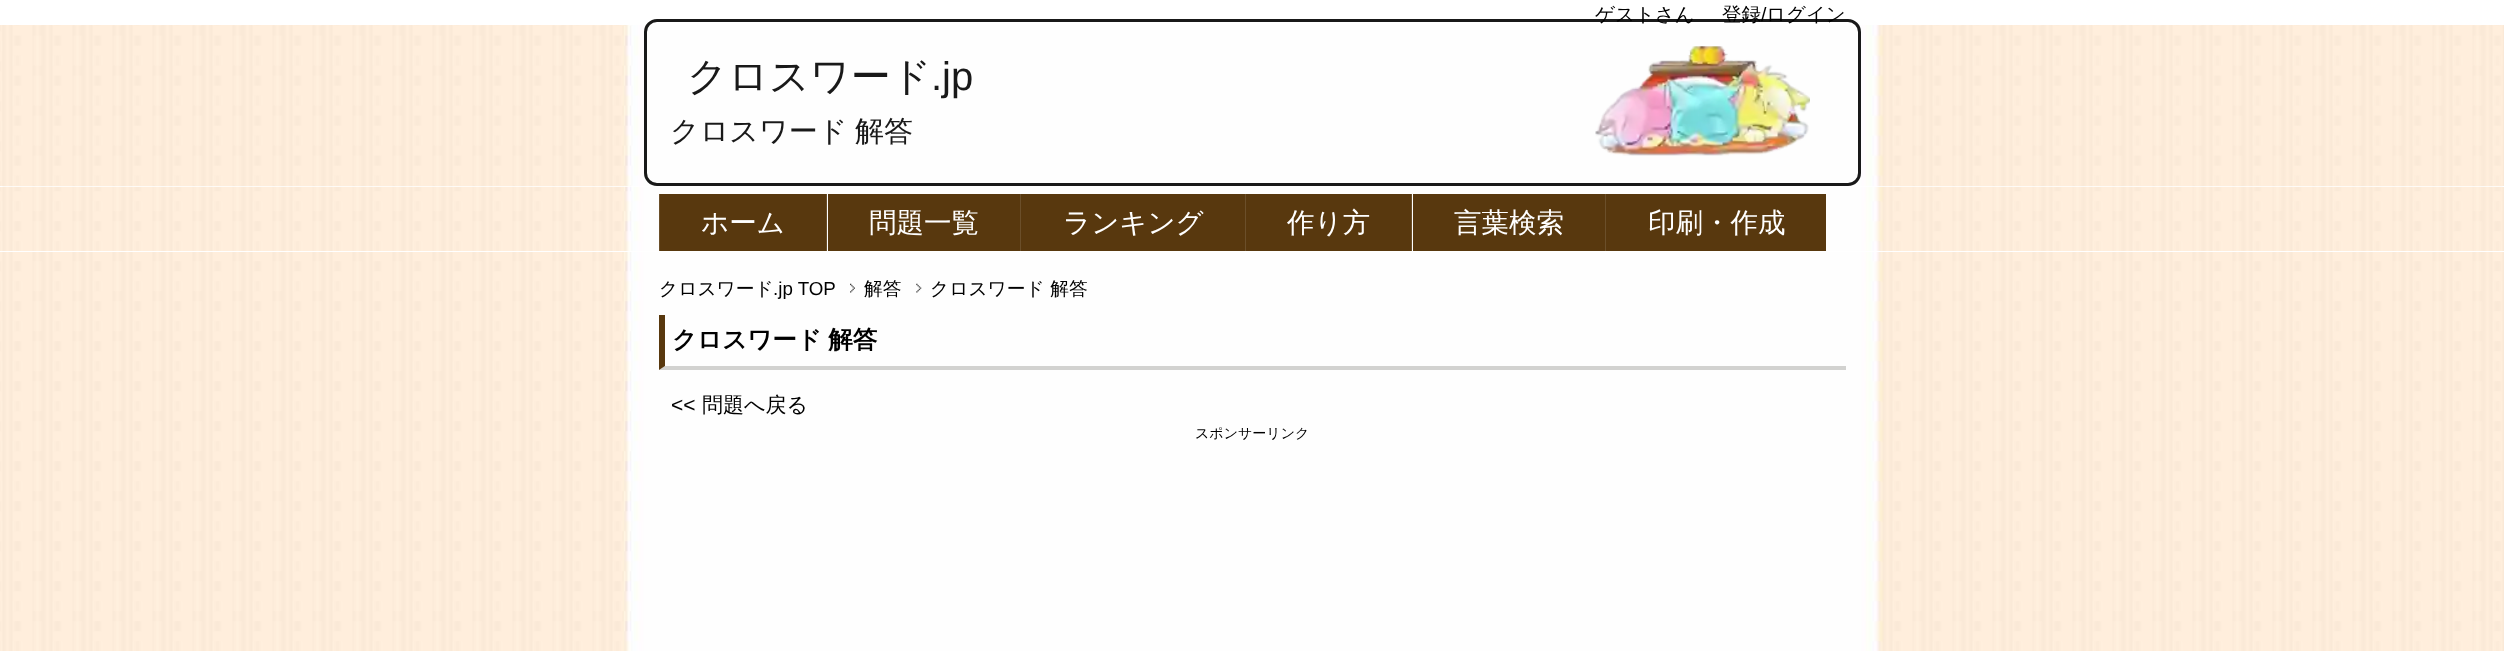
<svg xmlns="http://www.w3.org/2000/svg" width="2504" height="651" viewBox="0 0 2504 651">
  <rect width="100%" height="100%" fill="rgb(255,255,255)"/>
  <image x="0" y="25" width="2504" height="626" href="pic1.png"/>
  <rect x="0" y="186" width="2504" height="1" fill="rgb(255,255,255)"/>
  <image x="2" y="25" width="2501" height="162" href="pic2.png"/>
  <g font-family="WenQuanYi Zen Hei" font-size="19.5" font-weight="500" fill="rgb(0,0,0)">
    <text x="1595" y="21">ゲストさん</text>
    <text x="1722" y="21">登録</text>
  </g>
  <text x="1761" y="21" font-family="Liberation Sans" font-size="19.5" fill="rgb(0,0,0)">/</text>
  <text x="1766" y="21" font-family="WenQuanYi Zen Hei" font-size="19.5" font-weight="500" fill="rgb(0,0,0)">ログイン</text>
  <image x="1595" y="46" width="215" height="110" href="pic3.png"/>
  <rect x="645.5" y="20.5" width="1214" height="164" rx="11.5" fill="none" stroke="rgba(0,0,0,0.9)" stroke-width="3"/>
  <text x="687" y="90" font-family="WenQuanYi Zen Hei" font-size="40" font-weight="500" fill="rgb(25,25,25)">クロスワード</text>
  <text x="931" y="90" font-family="Liberation Sans" font-size="40" fill="rgb(25,25,25)">.jp</text>
  <text x="670" y="141" word-spacing="-1" font-family="WenQuanYi Zen Hei" font-size="29" font-weight="500" fill="rgb(25,25,25)">クロスワード 解答</text>
  <rect x="0" y="251" width="2504" height="1" fill="rgb(255,255,255)"/>
  <rect x="659" y="194" width="1" height="57" fill="rgb(107,79,42)"/>
  <rect x="660" y="194" width="166" height="57" fill="rgb(88,56,14)"/>
  <text x="701" y="232" font-family="WenQuanYi Zen Hei" font-size="27.5" font-weight="500" fill="rgb(255,255,255)">ホーム</text>
  <rect x="826" y="194" width="1" height="57" fill="rgb(107,79,42)"/>
  <rect x="828" y="194" width="192" height="57" fill="rgb(88,56,14)"/>
  <text x="869" y="232" font-family="WenQuanYi Zen Hei" font-size="27.5" font-weight="500" fill="rgb(255,255,255)">問題一覧</text>
  <rect x="1020" y="194" width="1" height="57" fill="rgb(107,79,42)"/>
  <rect x="1021" y="194" width="224" height="57" fill="rgb(88,56,14)"/>
  <text x="1063" y="232" font-family="WenQuanYi Zen Hei" font-size="27.5" font-weight="500" fill="rgb(255,255,255)">ランキング</text>
  <rect x="1245" y="194" width="1" height="57" fill="rgb(107,79,42)"/>
  <rect x="1246" y="194" width="165" height="57" fill="rgb(88,56,14)"/>
  <text x="1287" y="232" font-family="WenQuanYi Zen Hei" font-size="27.5" font-weight="500" fill="rgb(255,255,255)">作り方</text>
  <rect x="1411" y="194" width="1" height="57" fill="rgb(107,79,42)"/>
  <rect x="1413" y="194" width="192" height="57" fill="rgb(88,56,14)"/>
  <text x="1454" y="232" font-family="WenQuanYi Zen Hei" font-size="27.5" font-weight="500" fill="rgb(255,255,255)">言葉検索</text>
  <rect x="1605" y="194" width="1" height="57" fill="rgb(107,79,42)"/>
  <rect x="1606" y="194" width="220" height="57" fill="rgb(88,56,14)"/>
  <text x="1648" y="232" font-family="WenQuanYi Zen Hei" font-size="27.5" font-weight="500" fill="rgb(255,255,255)">印刷・作成</text>
  <text x="659" y="295" font-family="WenQuanYi Zen Hei" font-size="18.75" font-weight="500" fill="rgb(0,0,0)">クロスワード</text>
  <text x="773" y="295" font-family="Liberation Sans" font-size="18.75" fill="rgb(0,0,0)">.jp TOP</text>
  <image x="850" y="283" width="5" height="10" href="pic4.png"/>
  <text x="864" y="295" font-family="WenQuanYi Zen Hei" font-size="18.75" font-weight="500" fill="rgb(0,0,0)">解答</text>
  <image x="916" y="283" width="6" height="10" href="pic5.png"/>
  <text x="930" y="295" font-family="WenQuanYi Zen Hei" font-size="18.75" font-weight="500" fill="rgb(0,0,0)">クロスワード 解答</text>
  <path d="M1846 370H659L665 366H1846Z" fill="rgb(210,210,208)"/>
  <path d="M659 370V315H665V366Z" fill="rgb(88,56,14)"/>
  <text x="672" y="348" word-spacing="-1" font-family="WenQuanYi Zen Hei" font-size="24.5" font-weight="bold" fill="rgb(0,0,0)">クロスワード 解答</text>
  <text x="671" y="412" font-family="Liberation Sans" font-size="21" fill="rgb(0,0,0)">&lt;&lt;</text>
  <text x="702" y="412" font-family="WenQuanYi Zen Hei" font-size="21" font-weight="500" fill="rgb(0,0,0)">問題へ戻る</text>
  <text x="1195" y="438" font-family="WenQuanYi Zen Hei" font-size="14" font-weight="500" fill="rgb(0,0,0)">スポンサーリンク</text>
</svg>
